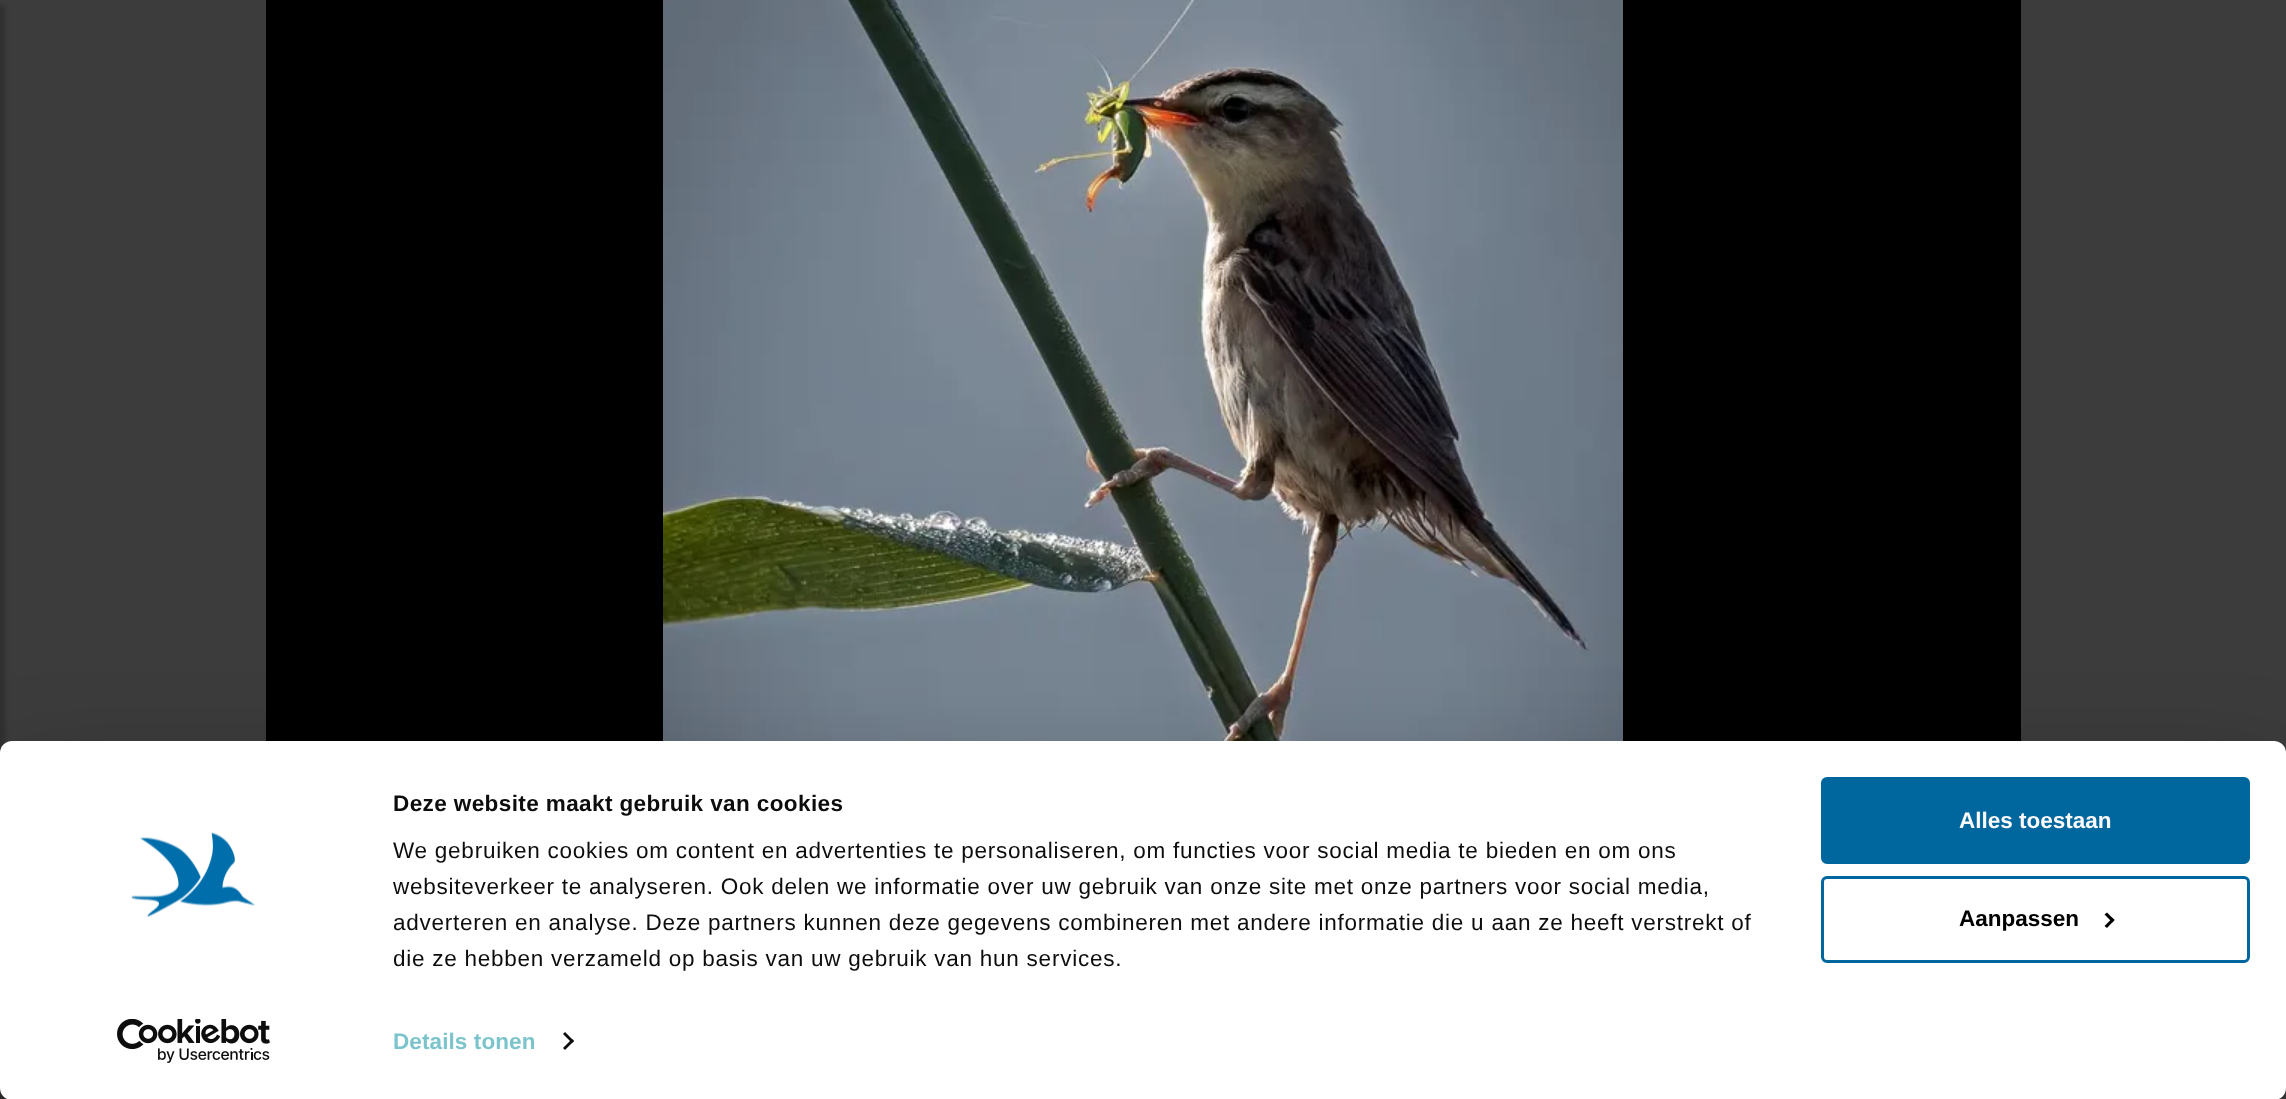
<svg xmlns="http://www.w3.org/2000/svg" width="2286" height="1099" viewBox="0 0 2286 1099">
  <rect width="100%" height="100%" fill="rgb(60,60,60)"/>
  <rect x="-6" y="5" width="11" height="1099" fill="rgba(0,0,0,0.2)" filter="blur(2px)"/>
  <rect x="266" y="0" width="1755" height="741" fill="rgb(0,0,0)"/>
  <image x="663" y="0" width="960" height="741" href="pic1.png"/>
  <rect x="0" y="786" width="2286" height="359" rx="12" fill="rgba(0,0,0,0.3)" filter="blur(52.5px)"/>
  <rect x="0" y="741" width="2286" height="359" rx="12" fill="rgb(255,255,255)"/>
  <image x="131" y="832" width="124" height="85" href="pic2.png"/>
  <image x="117" y="1019" width="153" height="44" href="pic3.png"/>
  <text x="393" y="811" font-family="Liberation Sans" font-size="22.5" font-weight="bold" letter-spacing="0.4" fill="rgb(13,13,13)">Deze website maakt gebruik van cookies</text>
  <g font-family="Liberation Sans" font-size="22.5" letter-spacing="0.75" fill="rgb(13,13,13)">
    <text>
      <tspan x="393" y="858">We gebruiken cookies om content en advertenties te personaliseren, om functies voor social media te bieden en om ons</tspan>
      <tspan x="393" y="894">websiteverkeer te analyseren. Ook delen we informatie over uw gebruik van onze site met onze partners voor social media,</tspan>
      <tspan x="393" y="930">adverteren en analyse. Deze partners kunnen deze gegevens combineren met andere informatie die u aan ze heeft verstrekt of</tspan>
      <tspan x="393" y="966">die ze hebben verzameld op basis van uw gebruik van hun services.</tspan>
    </text>
  </g>
  <text x="393" y="1049" font-family="Liberation Sans" font-size="22.5" font-weight="bold" letter-spacing="0.1" fill="rgb(124,196,203)">Details tonen</text>
  <path d="M565 1032L574 1041L572 1043L563 1034Z" fill="rgb(13,13,13)"/>
  <path d="M572 1039L574 1041L565 1050L563 1048Z" fill="rgb(13,13,13)"/>
  <rect x="1822.5" y="778.5" width="426" height="84" rx="4.5" fill="rgb(0,102,158)" stroke="rgb(0,102,158)" stroke-width="3"/>
  <text x="1959" y="828" font-family="Liberation Sans" font-size="22.5" font-weight="bold" fill="rgb(251,249,249)">Alles toestaan</text>
  <rect x="1822.5" y="877.5" width="426" height="84" rx="4.5" fill="none" stroke="rgb(0,102,158)" stroke-width="3"/>
  <text x="1959" y="926" font-family="Liberation Sans" font-size="22.5" font-weight="bold" fill="rgb(0,0,0)">Aanpassen</text>
  <path d="M2107 912.5L2114.5 920L2112.5 922.5L2104.5 914.5Z" fill="rgb(0,0,0)"/>
  <path d="M2112.5 918L2114.5 920L2107 928L2104.5 926Z" fill="rgb(0,0,0)"/>
</svg>
